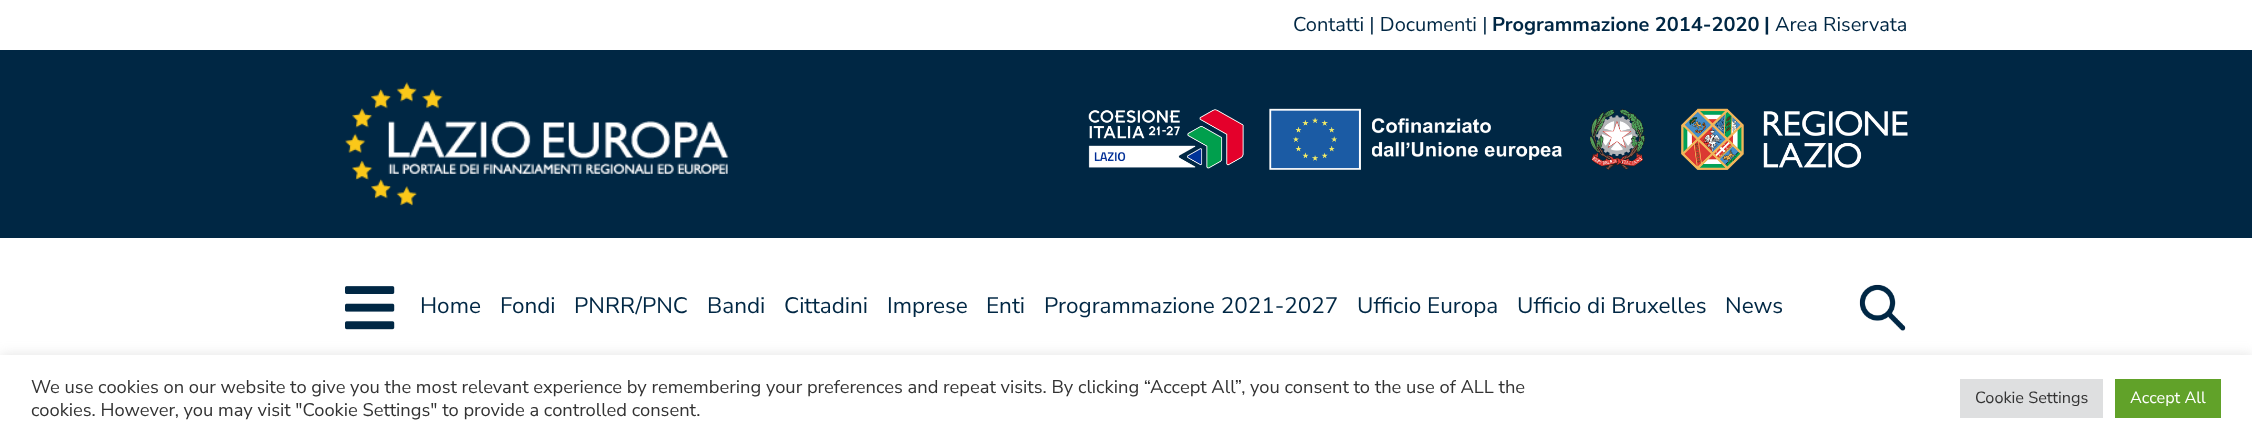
<svg xmlns="http://www.w3.org/2000/svg" width="2252" height="441" viewBox="0 0 2252 441">
  <rect width="100%" height="100%" fill="rgb(255,255,255)"/>
  <text x="1293" y="31" font-family="Nunito Sans" font-size="20" fill="rgb(0,39,68)">Contatti | Documenti |</text>
  <g font-family="Nunito Sans" font-size="20" font-weight="bold" fill="rgb(0,39,68)">
    <text x="1492" y="31">Programmazione 2014-2020</text>
    <text x="1764" y="31">|</text>
  </g>
  <text x="1775" y="31" font-family="Nunito Sans" font-size="20" fill="rgb(0,39,68)">Area Riservata</text>
  <rect x="0" y="50" width="2252" height="188" fill="rgb(0,39,68)"/>
  <image x="345" y="82" width="384" height="124" href="pic1.png"/>
  <image x="1088" y="108" width="820" height="62" href="pic2.png"/>
  <image x="345" y="286" width="50" height="44" href="pic3.png"/>
  <g font-family="Nunito Sans" font-size="22.5" fill="rgb(0,39,68)">
    <text x="420" y="313">Home</text>
    <text x="500" y="313">Fondi</text>
    <text x="574" y="313">PNRR/PNC</text>
    <text x="707" y="313">Bandi</text>
    <text x="784" y="313">Cittadini</text>
    <text x="887" y="313">Imprese</text>
    <text x="986" y="313">Enti</text>
    <text x="1044" y="313">Programmazione 2021-2027</text>
    <text x="1357" y="313">Ufficio Europa</text>
    <text x="1517" y="313">Ufficio di Bruxelles</text>
    <text x="1725" y="313">News</text>
  </g>
  <image x="1859" y="284" width="47" height="47" href="pic4.png"/>
  <rect x="0" y="354" width="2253" height="86" fill="rgba(172,171,171,0.3)" filter="blur(6px)"/>
  <rect x="0" y="355" width="2252" height="86" fill="rgb(255,255,255)"/>
  <g font-family="Nunito Sans" font-size="18.33" fill="rgb(51,51,51)">
    <text>
      <tspan x="31" y="393">We use cookies on our website to give you the most relevant experience by remembering your preferences and repeat visits. By clicking “Accept All”, you consent to the use of ALL the</tspan>
      <tspan x="31" y="416">cookies. However, you may visit "Cookie Settings" to provide a controlled consent.</tspan>
    </text>
  </g>
  <rect x="1960" y="379" width="143" height="39" fill="rgb(222,223,224)"/>
  <text x="1975" y="403" font-family="Nunito Sans" font-size="16.25" fill="rgb(51,51,51)">Cookie Settings</text>
  <rect x="2115" y="379" width="106" height="39" fill="rgb(97,162,41)"/>
  <text x="2130" y="403" font-family="Nunito Sans" font-size="16.25" fill="rgb(255,255,255)">Accept All</text>
</svg>
